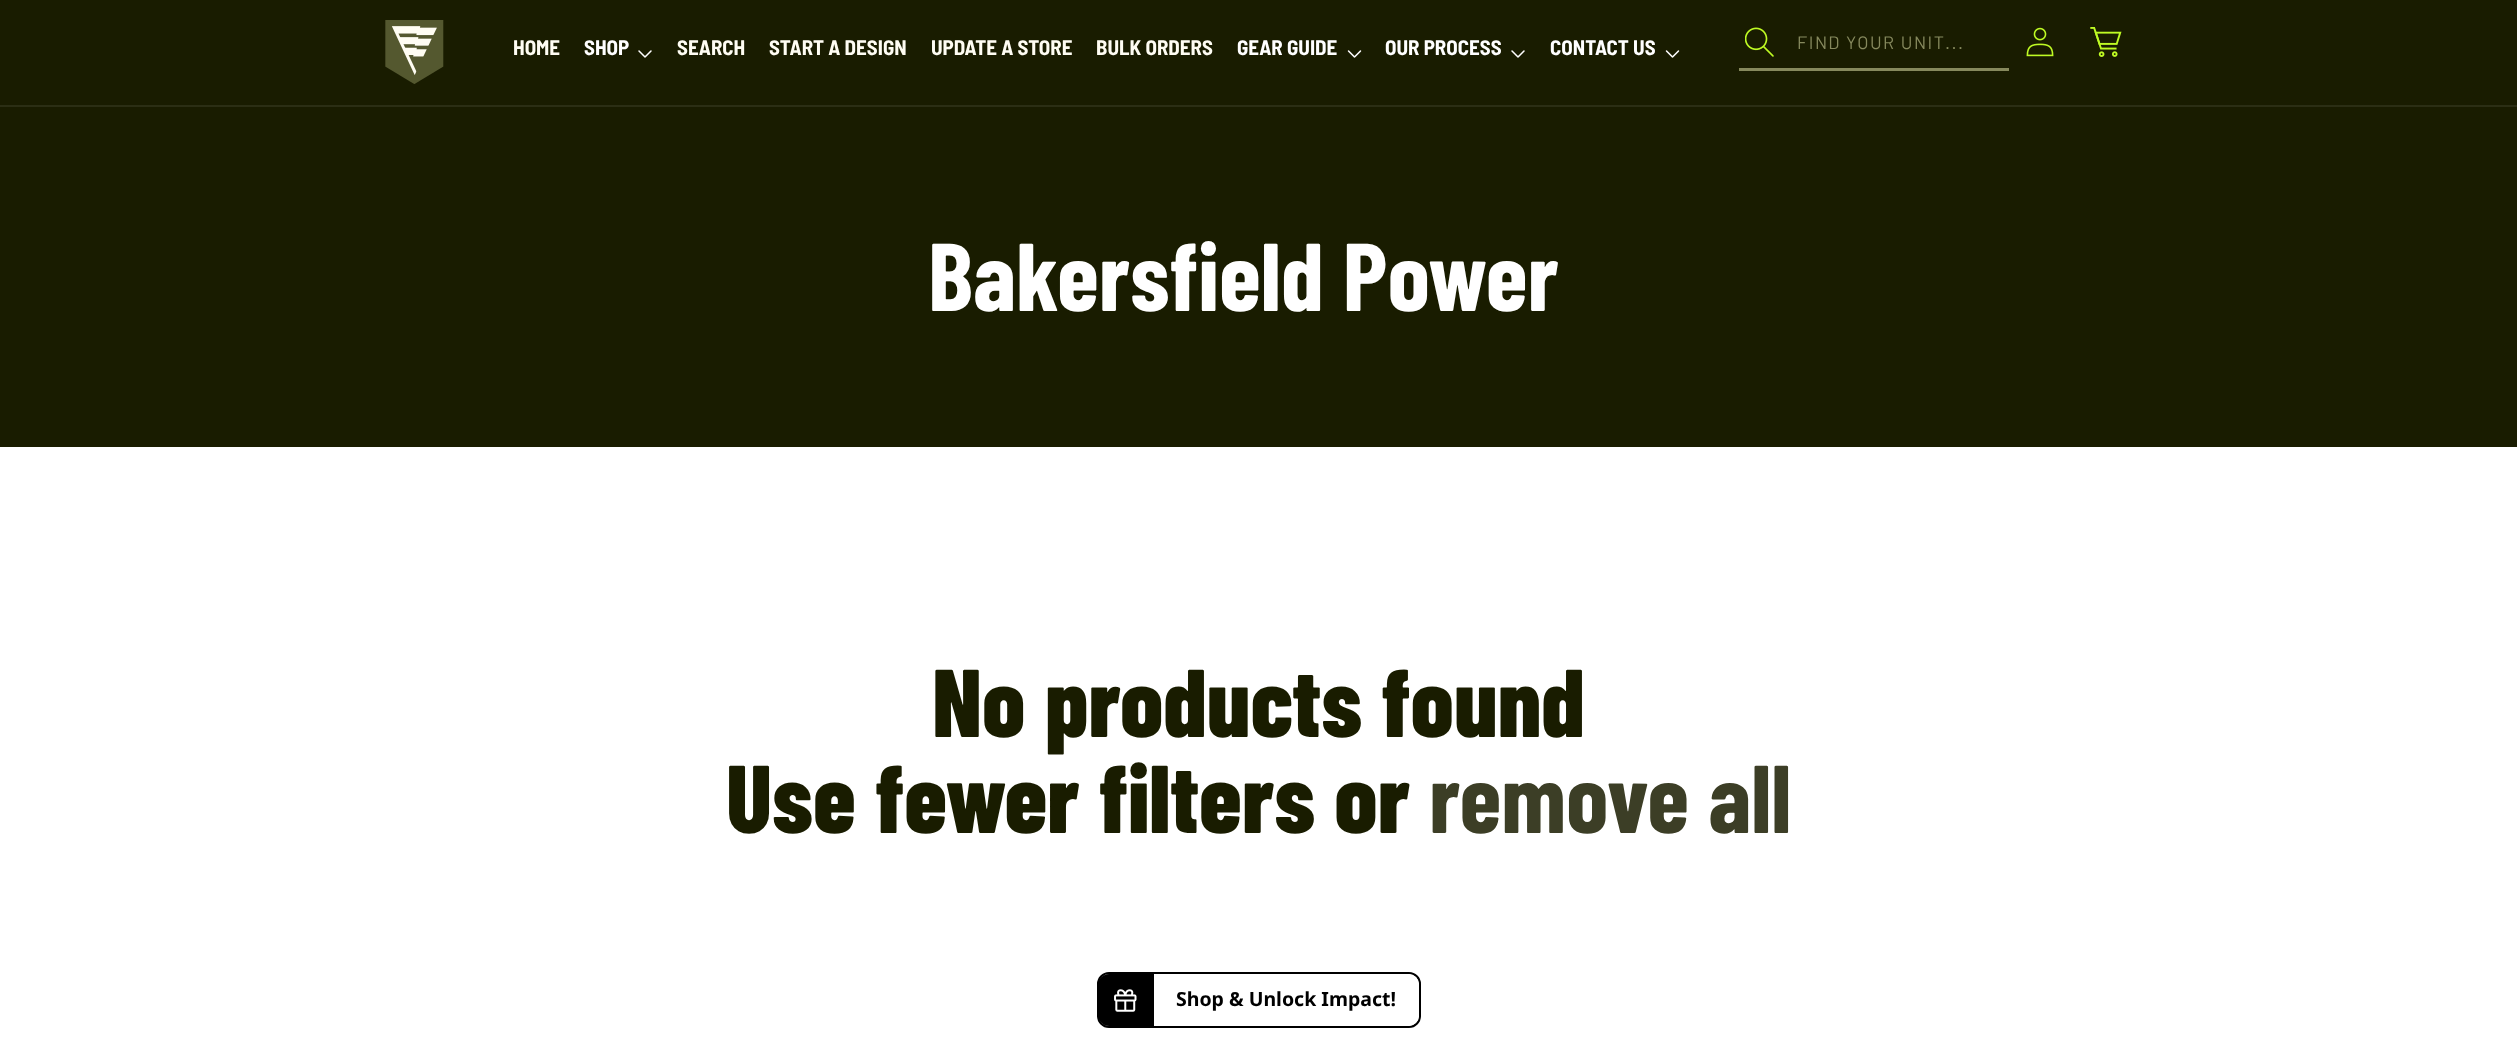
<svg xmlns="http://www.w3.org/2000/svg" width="2517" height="1057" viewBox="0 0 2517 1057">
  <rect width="100%" height="100%" fill="rgb(25,28,0)"/>
  <rect x="0" y="105" width="2517" height="2" fill="rgb(43,46,20)"/>
  <image x="385" y="20" width="59" height="64" href="pic1.png"/>
  <text x="513" y="55" font-family="Barlow Semi Condensed" font-size="21" font-weight="bold" fill="rgb(255,253,243)">HOME</text>
  <text x="584" y="55" font-family="Barlow Semi Condensed" font-size="21" font-weight="bold" fill="rgb(255,255,255)">SHOP</text>
  <image x="638" y="50" width="14" height="8" href="pic2.png"/>
  <g font-family="Barlow Semi Condensed" font-size="21" font-weight="bold" fill="rgb(255,253,243)">
    <text x="677" y="55">SEARCH</text>
    <text x="769" y="55">START A DESIGN</text>
    <text x="931" y="55">UPDATE A STORE</text>
    <text x="1096" y="55">BULK ORDERS</text>
  </g>
  <text x="1237" y="55" font-family="Barlow Semi Condensed" font-size="21" font-weight="bold" fill="rgb(255,255,255)">GEAR GUIDE</text>
  <image x="1347" y="50" width="15" height="8" href="pic3.png"/>
  <text x="1385" y="55" font-family="Barlow Semi Condensed" font-size="21" font-weight="bold" fill="rgb(255,255,255)">OUR PROCESS</text>
  <image x="1511" y="50" width="14" height="8" href="pic2.png"/>
  <text x="1550" y="55" font-family="Barlow Semi Condensed" font-size="21" font-weight="bold" fill="rgb(255,255,255)">CONTACT US</text>
  <image x="1665" y="50" width="15" height="8" href="pic3.png"/>
  <image x="1745" y="27" width="29" height="30" href="pic4.png"/>
  <text x="1797" y="49" font-family="Barlow" font-size="18" letter-spacing="1.5" fill="rgb(134,137,93)">FIND YOUR UNIT...</text>
  <rect x="1739" y="68" width="270" height="3" fill="rgb(134,137,93)"/>
  <image x="2026" y="27" width="28" height="30" href="pic5.png"/>
  <image x="2090" y="27" width="32" height="30" href="pic6.png"/>
  <text x="928" y="311" font-family="Barlow Condensed" font-size="96" font-weight="bold" fill="rgb(255,255,255)">Bakersfield Power</text>
  <rect x="0" y="447" width="2517" height="610" fill="rgb(255,255,255)"/>
  <g font-family="Barlow Condensed" font-size="96" font-weight="800" fill="rgb(25,28,0)">
    <text x="932" y="737">No products found</text>
    <text x="726" y="833">Use fewer filters or</text>
  </g>
  <text x="1429" y="833" font-family="Barlow Condensed" font-size="96" font-weight="bold" fill="rgb(60,62,38)">remove all</text>
  <rect x="1098" y="973" width="322" height="54" rx="11" fill="none" stroke="rgb(0,0,0)" stroke-width="2"/>
  <path d="M1109 974H1152V1026H1109C1103 1026 1098 1021 1098 1015V985C1098 979 1103 974 1109 974Z" fill="rgb(0,0,0)"/>
  <image x="1114" y="989" width="23" height="23" href="pic7.png"/>
  <path d="M1152 974H1408C1414 974 1419 979 1419 985V1015C1419 1021 1414 1026 1408 1026H1152Z" fill="rgb(255,255,255)"/>
  <rect x="1152" y="974" width="2" height="52" fill="rgb(0,0,0)"/>
  <text x="1176" y="1006" font-family="Noto Sans" font-size="19.5" font-weight="bold" fill="rgb(0,0,0)">Shop &amp; Unlock Impact!</text>
</svg>
